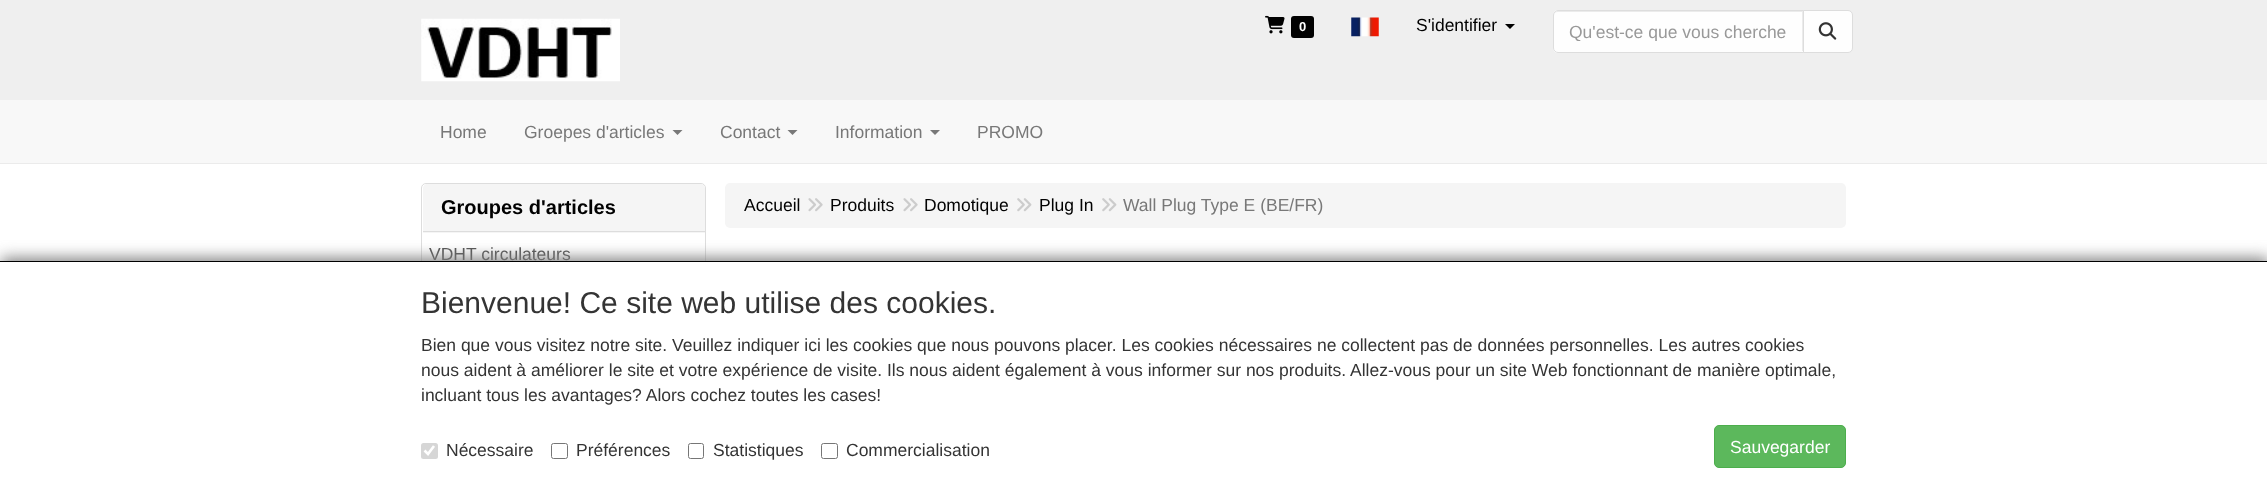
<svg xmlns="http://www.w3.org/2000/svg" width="2267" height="485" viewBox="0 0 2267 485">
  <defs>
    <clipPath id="clip1"><rect x="1569" y="21" width="221" height="20"/></clipPath>
  </defs>
  <rect width="100%" height="100%" fill="rgb(255,255,255)"/>
  <rect x="0" y="0" width="2267" height="100" fill="rgb(239,239,239)"/>
  <image x="421" y="18" width="199" height="64" href="pic1.png"/>
  <image x="1265" y="15" width="20" height="19" href="pic2.png"/>
  <rect x="1291" y="16" width="23" height="22" rx="3" fill="rgb(1,1,1)"/>
  <text x="1299" y="31" font-family="Liberation Sans" font-size="13" font-weight="bold" fill="rgb(255,255,255)">0</text>
  <image x="1351" y="17" width="28" height="20" href="pic3.png"/>
  <text x="1416" y="31" font-family="Liberation Sans" font-size="17.5" fill="rgb(1,1,1)">S'identifier</text>
  <path d="M1505 24H1515L1510 29Z" fill="rgb(1,1,1)"/>
  <path d="M1558 10H1804V53H1558C1555 53 1553 51 1553 48V15C1553 12 1555 10 1558 10Z" fill="rgb(254,254,254)"/>
  <path d="M1558 12H1802V51H1803V11H1558C1556 11 1554 13 1554 15V16C1554 14 1555 12 1558 12Z" fill="rgb(235,235,235)"/>
  <path d="M1558 10.5H1803.5V52.5H1558C1555.5 52.5 1553.5 50.5 1553.5 48V15C1553.5 12.5 1555.5 10.5 1558 10.5Z" fill="none" stroke="rgb(221,221,221)"/>
  <g clip-path="url(#clip1)">
    <text x="1569" y="38" font-family="Liberation Sans" font-size="17.5" fill="rgb(153,153,153)">Qu'est-ce que vous cherche</text>
  </g>
  <path d="M1803.5 10.5H1848C1850.5 10.5 1852.5 12.5 1852.5 15V48C1852.5 50.5 1850.5 52.5 1848 52.5H1803.5Z" fill="rgb(254,254,254)" stroke="rgb(221,221,221)"/>
  <image x="1818" y="22" width="19" height="18" href="pic4.png"/>
  <rect x="0" y="100" width="2267" height="63" fill="rgb(248,248,248)"/>
  <rect x="0" y="163" width="2267" height="1" fill="rgb(235,235,235)"/>
  <g font-family="Liberation Sans" font-size="17.5" fill="rgb(120,120,120)">
    <text x="440" y="138">Home</text>
    <text x="524" y="138">Groepes d'articles</text>
  </g>
  <path d="M672.5 130H682.5L677.5 135Z" fill="rgb(120,120,120)"/>
  <text x="720" y="138" font-family="Liberation Sans" font-size="17.5" fill="rgb(120,120,120)">Contact</text>
  <path d="M787.5 130H797.5L792.5 135Z" fill="rgb(120,120,120)"/>
  <text x="835" y="138" font-family="Liberation Sans" font-size="17.5" fill="rgb(120,120,120)">Information</text>
  <path d="M930 130H940L935 135Z" fill="rgb(120,120,120)"/>
  <text x="977" y="138" font-family="Liberation Sans" font-size="17.5" fill="rgb(120,120,120)">PROMO</text>
  <rect x="421.5" y="183.5" width="284" height="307" rx="4.5" fill="none" stroke="rgb(221,221,221)"/>
  <path d="M427 184H701C703 184 705 186 705 188V233H423V188C423 186 425 184 427 184Z" fill="rgb(245,245,245)"/>
  <rect x="423" y="231" width="282" height="1" fill="rgb(221,221,221)"/>
  <text x="441" y="214" font-family="Liberation Sans" font-size="20" font-weight="bold" fill="rgb(1,1,1)">Groupes d'articles</text>
  <text x="429" y="260" font-family="Liberation Sans" font-size="17.5" fill="rgb(85,85,85)">VDHT circulateurs</text>
  <rect x="725" y="183" width="1121" height="45" rx="5" fill="rgb(245,245,245)"/>
  <text x="744" y="211" font-family="Liberation Sans" font-size="17.5" fill="rgb(1,1,1)">Accueil</text>
  <image x="808" y="198" width="15" height="14" href="pic5.png"/>
  <text x="830" y="211" font-family="Liberation Sans" font-size="17.5" fill="rgb(1,1,1)">Produits</text>
  <image x="903" y="198" width="15" height="14" href="pic5.png"/>
  <text x="924" y="211" font-family="Liberation Sans" font-size="17.5" fill="rgb(1,1,1)">Domotique</text>
  <image x="1017" y="198" width="15" height="14" href="pic6.png"/>
  <text x="1039" y="211" font-family="Liberation Sans" font-size="17.5" fill="rgb(1,1,1)">Plug In</text>
  <image x="1102" y="198" width="15" height="14" href="pic6.png"/>
  <text x="1123" y="211" font-family="Liberation Sans" font-size="17.5" fill="rgb(120,120,120)">Wall Plug Type E (BE/FR)</text>
  <rect x="1" y="258" width="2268" height="223" fill="rgb(128,128,128)" filter="blur(7.5px)"/>
  <rect x="0" y="262" width="2267" height="223" fill="rgb(255,255,255)"/>
  <rect x="0" y="261" width="2267" height="1" fill="rgb(0,0,0)"/>
  <text x="421" y="313" font-family="Liberation Sans" font-size="30" fill="rgb(52,52,52)">Bienvenue! Ce site web utilise des cookies.</text>
  <g font-family="Liberation Sans" font-size="17.5" fill="rgb(52,52,52)">
    <text>
      <tspan x="421" y="351">Bien que vous visitez notre site. Veuillez indiquer ici les cookies que nous pouvons placer. Les cookies nécessaires ne collectent pas de données personnelles. Les autres cookies</tspan>
      <tspan x="421" y="376">nous aident à améliorer le site et votre expérience de visite. Ils nous aident également à vous informer sur nos produits. Allez-vous pour un site Web fonctionnant de manière optimale,</tspan>
      <tspan x="421" y="401">incluant tous les avantages? Alors cochez toutes les cases!</tspan>
    </text>
  </g>
  <rect x="421" y="443" width="17" height="16" rx="2.5" fill="rgb(214,214,214)"/>
  <path d="M424.5 450.5L428 454L434 446" fill="none" stroke="rgb(255,255,255)" stroke-width="2.6"/>
  <text x="446" y="456" font-family="Liberation Sans" font-size="17.5" fill="rgb(52,52,52)">Nécessaire</text>
  <rect x="551.5" y="443.5" width="16" height="15" rx="2" fill="none" stroke="rgb(118,118,118)"/>
  <text x="576" y="456" font-family="Liberation Sans" font-size="17.5" fill="rgb(52,52,52)">Préférences</text>
  <rect x="688.5" y="443.5" width="15" height="15" rx="2" fill="none" stroke="rgb(118,118,118)"/>
  <text x="713" y="456" font-family="Liberation Sans" font-size="17.5" fill="rgb(52,52,52)">Statistiques</text>
  <rect x="821.5" y="443.5" width="16" height="15" rx="2" fill="none" stroke="rgb(118,118,118)"/>
  <text x="846" y="456" font-family="Liberation Sans" font-size="17.5" fill="rgb(52,52,52)">Commercialisation</text>
  <rect x="1714.5" y="425.5" width="131" height="42" rx="4.5" fill="rgb(92,184,92)" stroke="rgb(76,174,76)"/>
  <text x="1730" y="453" font-family="Liberation Sans" font-size="17.5" fill="rgb(255,255,255)">Sauvegarder</text>
</svg>
